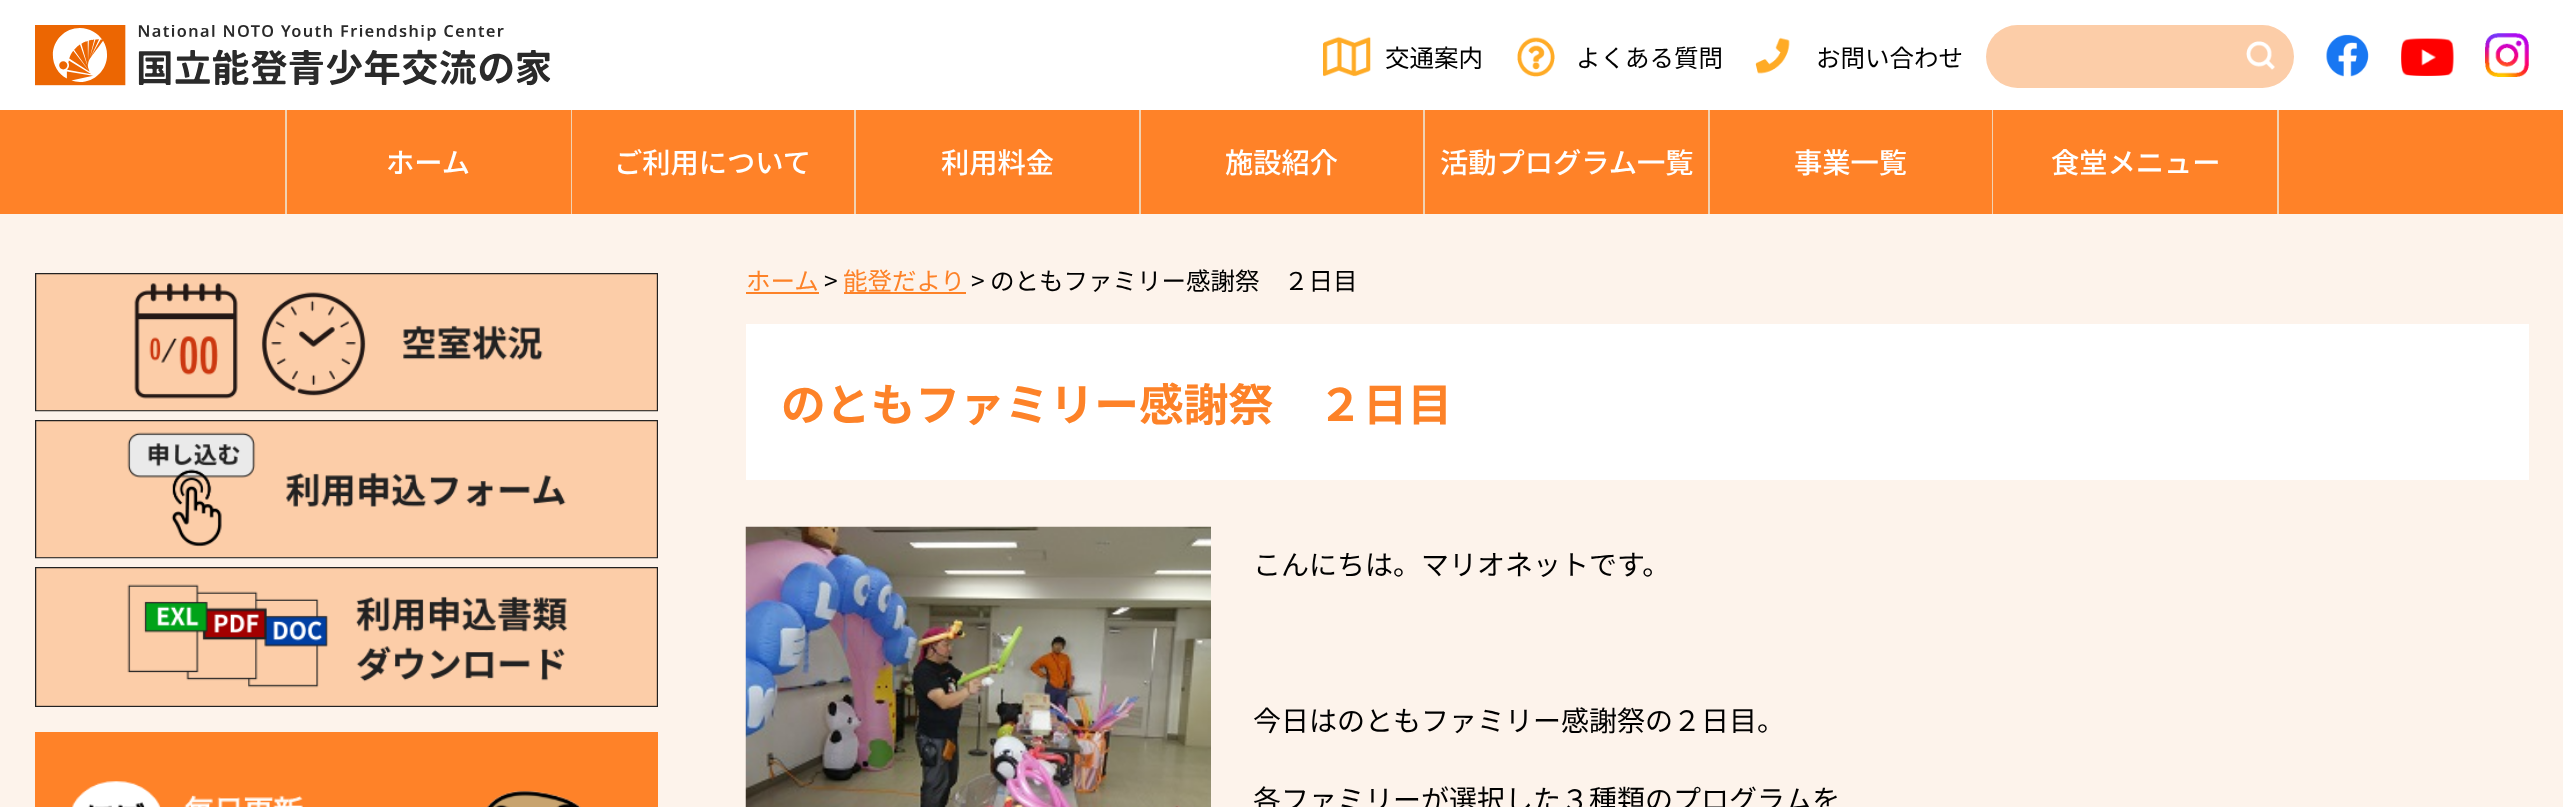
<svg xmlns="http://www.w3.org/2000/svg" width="2563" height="807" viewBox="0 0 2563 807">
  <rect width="100%" height="100%" fill="rgb(253,243,235)"/>
  <rect x="0" y="0" width="2563" height="110" fill="rgb(255,255,255)"/>
  <image x="35" y="25" width="516" height="61" href="pic1.png"/>
  <image x="1323" y="36" width="48" height="41" href="pic2.png"/>
  <text x="1385" y="67" font-family="Noto Sans JP" font-size="24.5" fill="rgb(0,0,0)">交通案内</text>
  <image x="1517" y="37" width="38" height="40" href="pic3.png"/>
  <text x="1576" y="67" font-family="Noto Sans JP" font-size="24.5" fill="rgb(0,0,0)">よくある質問</text>
  <image x="1755" y="37" width="35" height="37" href="pic4.png"/>
  <text x="1816" y="67" font-family="Noto Sans JP" font-size="24.5" fill="rgb(0,0,0)">お問い合わせ</text>
  <rect x="1986" y="25" width="308" height="63" rx="31.5" fill="rgb(252,205,168)"/>
  <image x="2246" y="41" width="29" height="29" href="pic5.png"/>
  <image x="2326" y="34" width="43" height="43" href="pic6.png"/>
  <image x="2401" y="38" width="53" height="38" href="pic7.png"/>
  <image x="2485" y="33" width="44" height="44" href="pic8.png"/>
  <rect x="0" y="110" width="2563" height="104" fill="rgb(255,130,40)"/>
  <rect x="571" y="110" width="1" height="104" fill="rgb(241,210,178)"/>
  <rect x="285" y="110" width="2" height="104" fill="rgb(241,210,178)"/>
  <text x="386" y="173" font-family="Noto Sans JP" font-size="28.25" font-weight="500" fill="rgb(255,255,255)">ホーム</text>
  <rect x="854" y="110" width="2" height="104" fill="rgb(241,210,178)"/>
  <text x="614" y="173" font-family="Noto Sans JP" font-size="28.25" font-weight="500" fill="rgb(255,255,255)">ご利⽤について</text>
  <rect x="1139" y="110" width="2" height="104" fill="rgb(241,210,178)"/>
  <text x="941" y="173" font-family="Noto Sans JP" font-size="28.25" font-weight="500" fill="rgb(255,255,255)">利⽤料⾦</text>
  <rect x="1423" y="110" width="2" height="104" fill="rgb(241,210,178)"/>
  <text x="1225" y="173" font-family="Noto Sans JP" font-size="28.25" font-weight="500" fill="rgb(255,255,255)">施設紹介</text>
  <rect x="1708" y="110" width="2" height="104" fill="rgb(241,210,178)"/>
  <text x="1440" y="173" font-family="Noto Sans JP" font-size="28.25" font-weight="500" fill="rgb(255,255,255)">活動プログラム⼀覧</text>
  <rect x="1992" y="110" width="1" height="104" fill="rgb(241,210,178)"/>
  <text x="1794" y="173" font-family="Noto Sans JP" font-size="28.25" font-weight="500" fill="rgb(255,255,255)">事業⼀覧</text>
  <rect x="2277" y="110" width="2" height="104" fill="rgb(241,210,178)"/>
  <text x="2051" y="173" font-family="Noto Sans JP" font-size="28.25" font-weight="500" fill="rgb(255,255,255)">⾷堂メニュー</text>
  <image x="35" y="273" width="623" height="139" href="pic9.png"/>
  <image x="35" y="420" width="623" height="139" href="pic10.png"/>
  <image x="35" y="567" width="623" height="140" href="pic11.png"/>
  <rect x="35" y="732" width="623" height="75" fill="rgb(255,130,40)"/>
  <image x="72" y="781" width="509" height="26" href="pic12.png"/>
  <text x="746" y="290" font-family="Noto Sans JP" font-size="24.5" fill="rgb(253,130,40)">ホーム</text>
  <rect x="746" y="292" width="73" height="2" fill="rgb(253,130,40)"/>
  <text x="824" y="290" font-family="Noto Sans JP" font-size="24.5" fill="rgb(0,0,0)">&gt;</text>
  <text x="843" y="290" font-family="Noto Sans JP" font-size="24.5" fill="rgb(253,130,40)">能登だより</text>
  <rect x="844" y="292" width="122" height="2" fill="rgb(253,130,40)"/>
  <text x="971" y="290" font-family="Noto Sans JP" font-size="24.5" fill="rgb(0,0,0)">&gt; のともファミリー感謝祭　２日目</text>
  <rect x="746" y="324" width="1783" height="156" fill="rgb(255,255,255)"/>
  <text x="781" y="421" font-family="Noto Sans JP" font-size="44.75" font-weight="bold" fill="rgb(253,130,40)">のともファミリー感謝祭　２日目</text>
  <image x="745" y="526" width="466" height="281" href="pic13.png"/>
  <g font-family="Noto Sans JP" font-size="28" fill="rgb(0,0,0)">
    <text x="1253" y="575">こんにちは。マリオネットです。</text>
    <text x="1253" y="731">今日はのともファミリー感謝祭の２日目。</text>
    <text x="1253" y="810">各ファミリーが選択した３種類のプログラムを</text>
  </g>
</svg>
